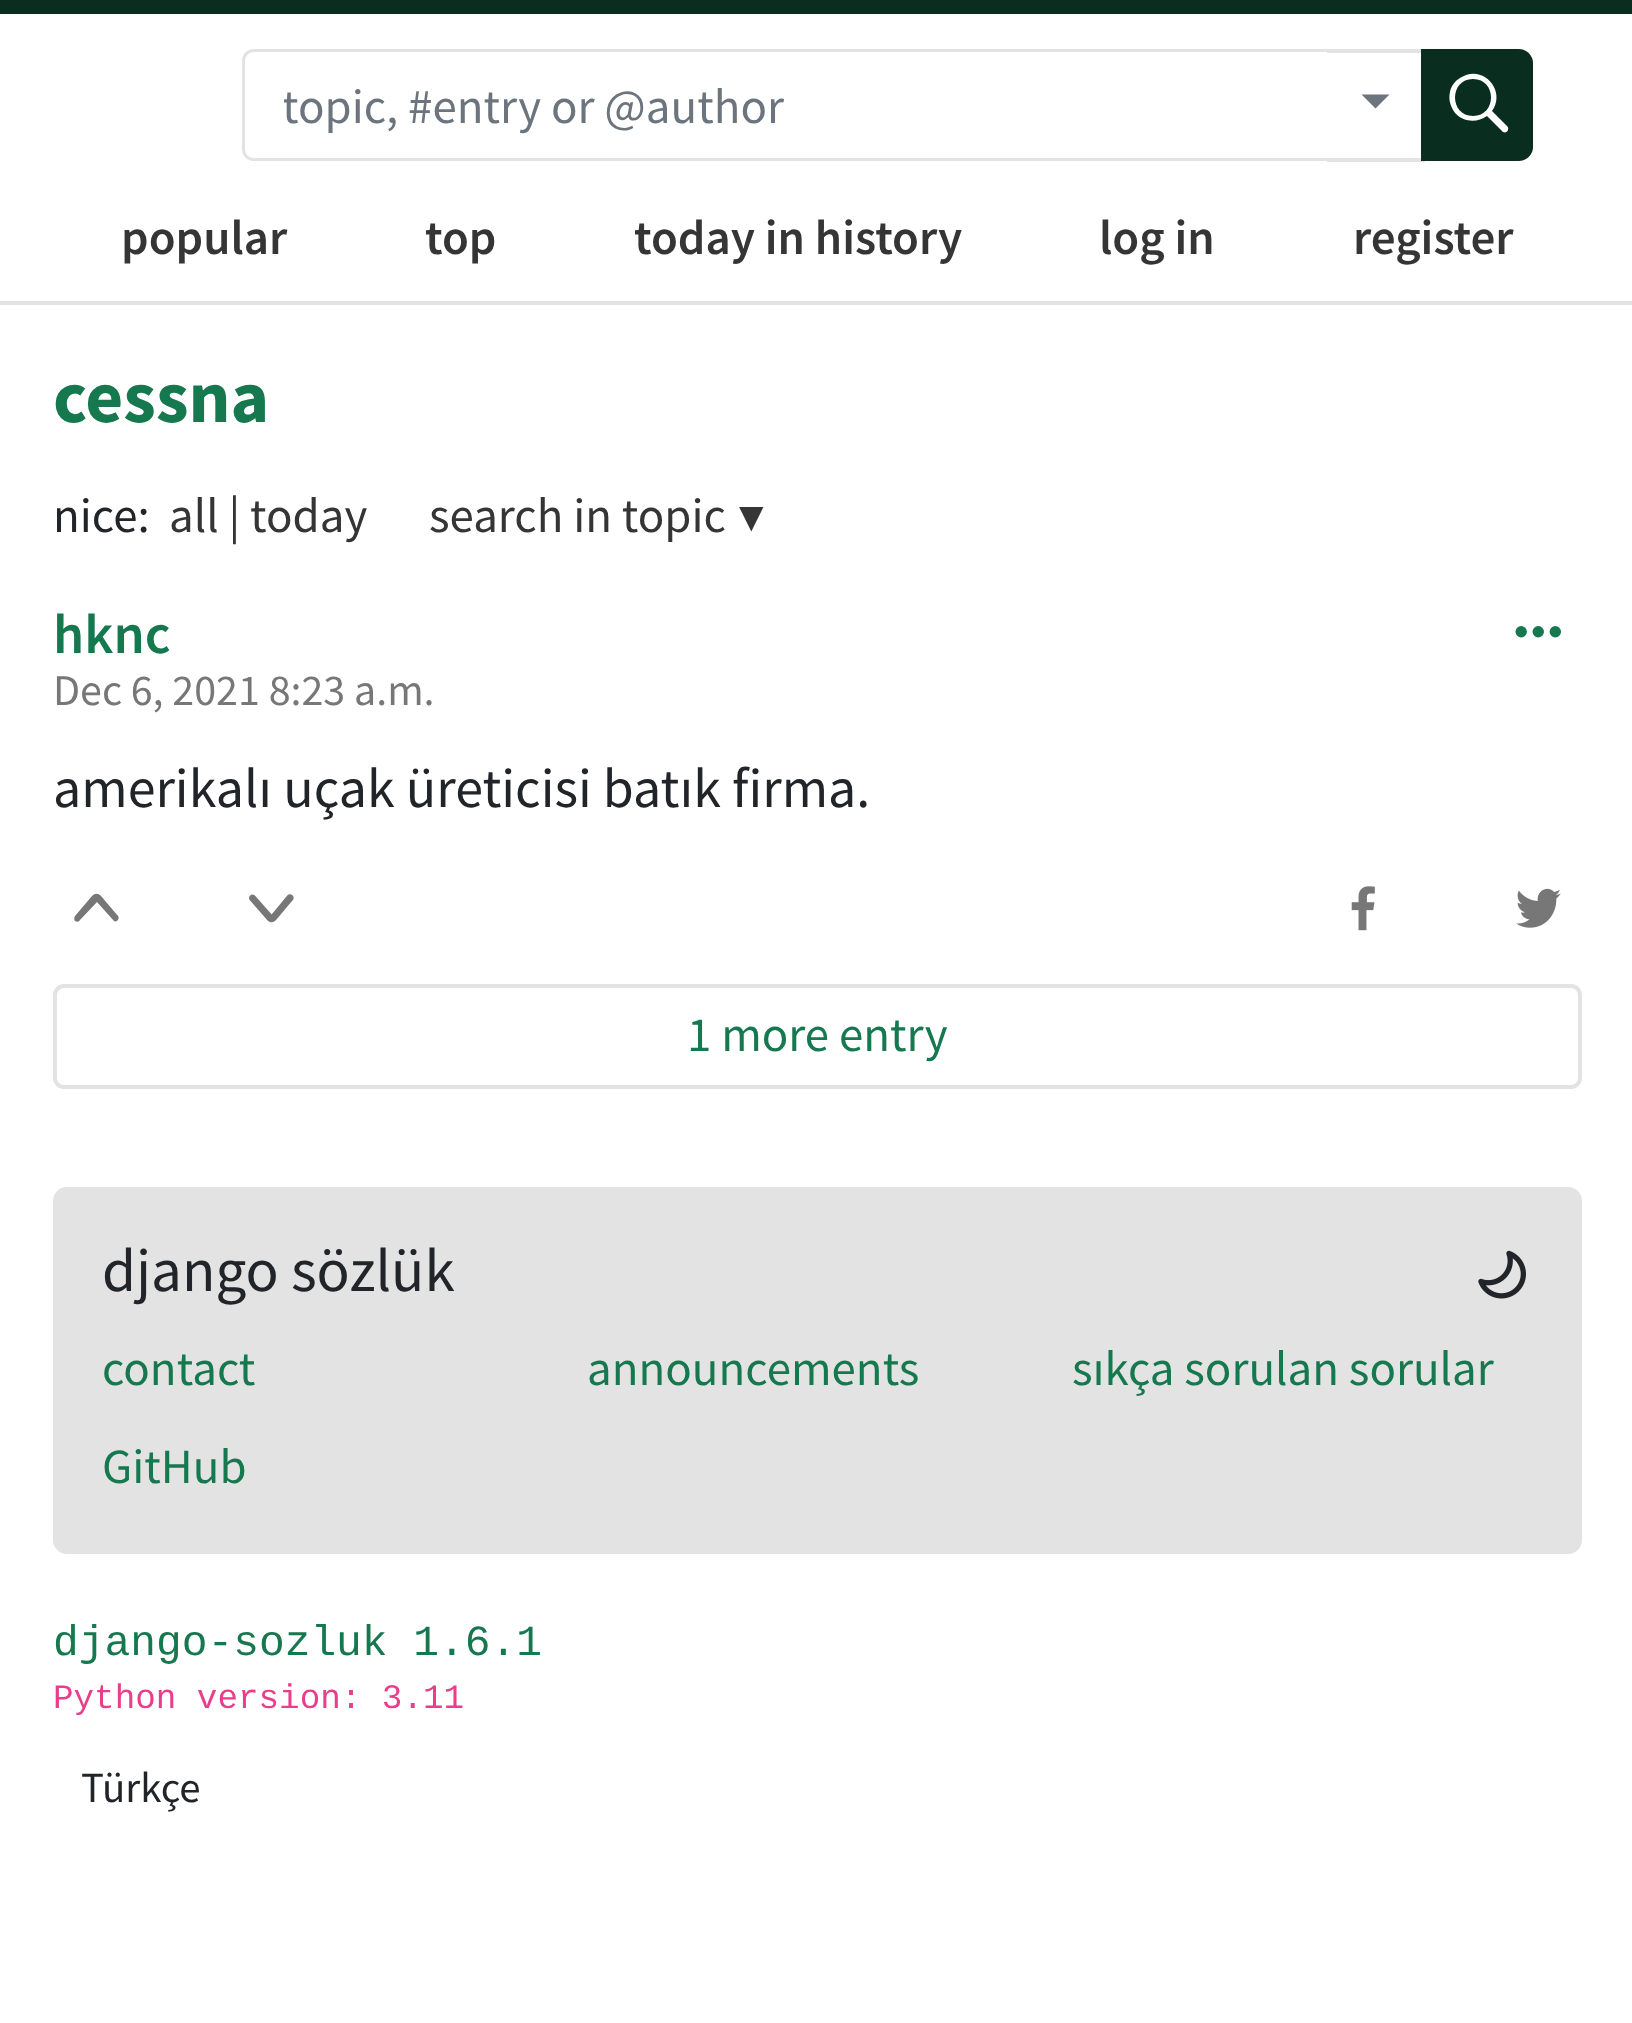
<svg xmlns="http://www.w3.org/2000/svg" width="1632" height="2023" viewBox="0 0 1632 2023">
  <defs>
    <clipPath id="clip1"><rect x="284" y="74" width="1011" height="63"/></clipPath>
  </defs>
  <rect width="100%" height="100%" fill="rgb(255,255,255)"/>
  <rect x="0" y="0" width="1632" height="14" fill="rgb(9,46,32)"/>
  <rect x="0" y="301" width="1632" height="4" fill="rgb(227,227,227)"/>
  <path d="M254 49H1330V161H254C247 161 242 156 242 149V61C242 54 247 49 254 49ZM254 52H1330V158H254C249 158 245 154 245 149V61C245 56 249 52 254 52Z" fill="rgb(227,227,227)" fill-rule="evenodd"/>
  <g clip-path="url(#clip1)">
    <text x="282" y="123" font-family="Source Sans Pro" font-size="49" fill="rgb(108,117,125)">topic, #entry or @author</text>
  </g>
  <rect x="1327" y="49" width="98" height="4" fill="rgb(227,227,227)"/>
  <rect x="1327" y="158" width="98" height="4" fill="rgb(227,227,227)"/>
  <path d="M1361.5 94.5H1389.5L1375.5 108.5Z" fill="rgb(108,117,125)"/>
  <path d="M1421 49H1519C1526.5 49 1533 55.5 1533 63V147C1533 154.5 1526.5 161 1519 161H1421Z" fill="rgb(9,46,32)"/>
  <path d="M1507 126L1492 111C1507 90 1482 63 1460 78C1455 81 1451 86 1450 92C1448 100 1451 108 1456 114C1464 122 1477 123 1487 116L1503 132C1507 134 1510 129 1507 126ZM1473 116C1449 116 1449 79 1473 79C1497 79 1497 116 1473 116Z" fill="rgb(255,255,255)" fill-rule="evenodd"/>
  <g font-family="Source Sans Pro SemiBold" font-size="49" font-weight="600" fill="rgb(53,53,53)">
    <text x="121" y="254">popular</text>
    <text x="425" y="254">top</text>
    <text x="634" y="254">today in history</text>
    <text x="1099" y="254">log in</text>
    <text x="1353" y="254">register</text>
  </g>
  <text x="53" y="422" font-family="Source Sans Pro" font-size="73.5" font-weight="bold" fill="rgb(22,120,79)">cessna</text>
  <text x="53" y="532" font-family="Source Sans Pro" font-size="49" fill="rgb(33,37,41)">nice:</text>
  <g font-family="Source Sans Pro" font-size="49" fill="rgb(53,53,53)">
    <text x="169" y="532">all | today</text>
    <text x="429" y="532">search in topic</text>
  </g>
  <text x="739" y="532" font-family="DejaVu Sans" font-size="49" fill="rgb(53,53,53)">▾</text>
  <text x="53" y="653" font-family="Source Sans Pro SemiBold" font-size="56" font-weight="600" fill="rgb(22,120,79)">hknc</text>
  <image x="1515" y="626" width="46" height="12" href="pic1.png"/>
  <text x="53" y="705" font-family="Source Sans Pro" font-size="44" fill="rgb(119,119,119)">Dec 6, 2021 8:23 a.m.</text>
  <text x="53" y="807" font-family="Source Sans Pro" font-size="56" fill="rgb(33,37,41)">amerikalı uçak üreticisi batık firma.</text>
  <path d="M118 916L101 896C98 893 95 893 92 896L75 916C74 917 74 920 75 921C77 922 79 922 80 920L97 902L114 921C117 923 120 918 118 916Z" fill="rgb(119,119,119)"/>
  <image x="249" y="894" width="45" height="29" href="pic2.png"/>
  <image x="1351" y="886" width="24" height="45" href="pic3.png"/>
  <image x="1516" y="888" width="45" height="40" href="pic4.png"/>
  <rect x="55" y="986" width="1525" height="101" rx="9" fill="none" stroke="rgb(227,227,227)" stroke-width="4"/>
  <text x="687" y="1051" font-family="Source Sans Pro" font-size="49" fill="rgb(22,120,79)">1 more entry</text>
  <rect x="53" y="1187" width="1529" height="367" rx="14" fill="rgb(227,227,227)"/>
  <text x="102" y="1291" font-family="Source Sans Pro" font-size="61.25" fill="rgb(33,37,41)">django sözlük</text>
  <image x="1478" y="1250" width="48" height="49" href="pic5.png"/>
  <g font-family="Source Sans Pro" font-size="49" fill="rgb(22,120,79)">
    <text x="102" y="1385">contact</text>
    <text x="587" y="1385">announcements</text>
    <text x="1072" y="1385">sıkça sorulan sorular</text>
    <text x="102" y="1483">GitHub</text>
  </g>
  <text x="53" y="1655" font-family="Liberation Mono" font-size="42.9" fill="rgb(22,120,79)">django-sozluk 1.6.1</text>
  <text x="53" y="1708" font-family="Liberation Mono" font-size="34.25" fill="rgb(232,62,140)">Python version: 3.11</text>
  <text x="81" y="1802" font-family="Source Sans Pro" font-size="42.9" fill="rgb(33,37,41)">Türkçe</text>
</svg>
